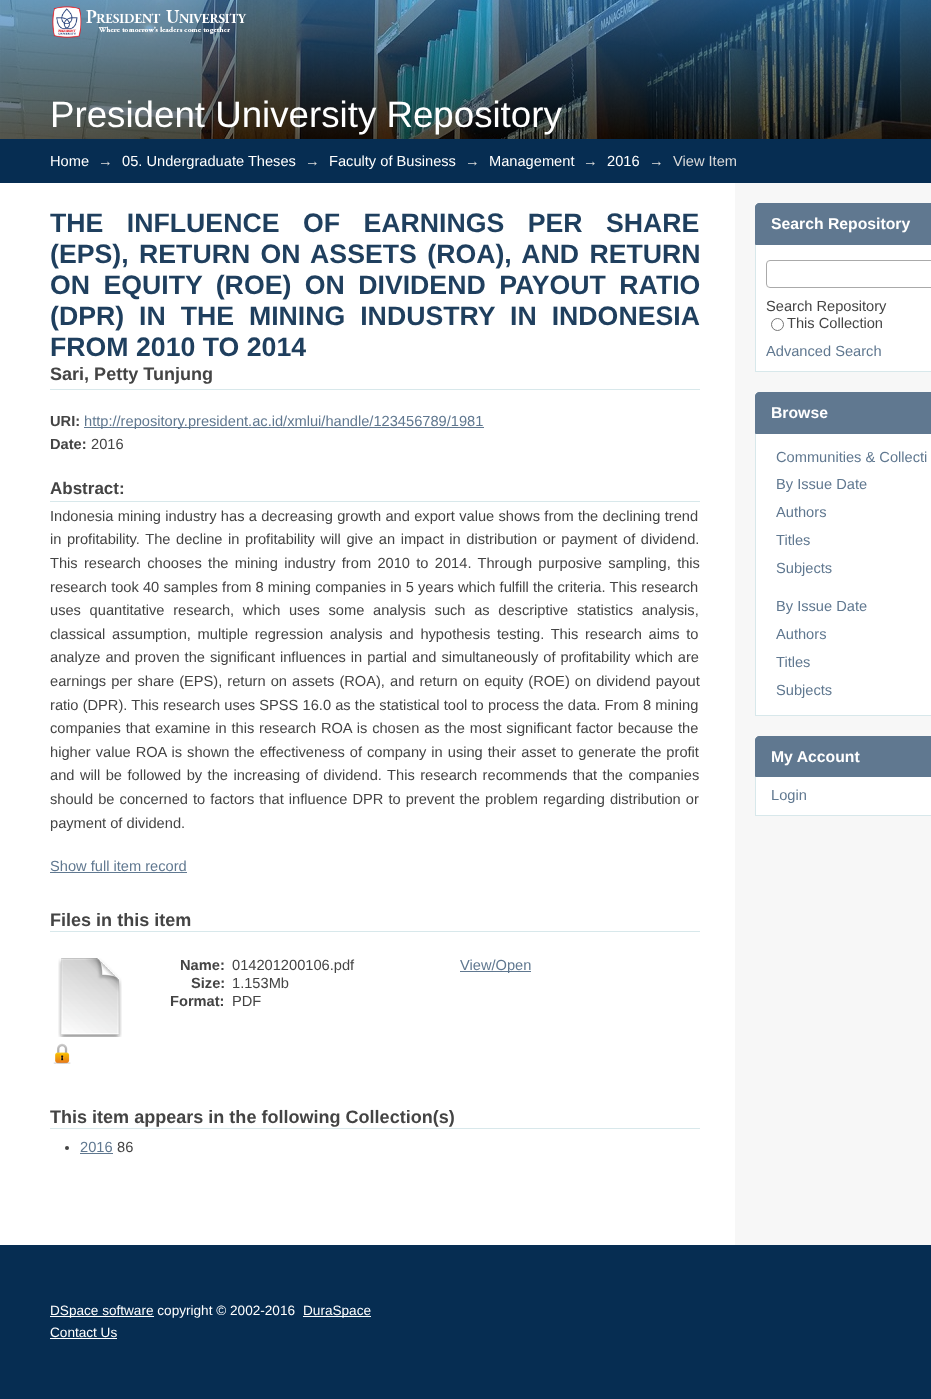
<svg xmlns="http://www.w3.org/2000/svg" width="931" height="1399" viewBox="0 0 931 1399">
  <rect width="100%" height="100%" fill="rgb(255,255,255)"/>
  <image x="0" y="0" width="931" height="139" href="pic1.png"/>
  <image x="52" y="6" width="195" height="32" href="pic2.png"/>
  <text x="50" y="127" font-family="Liberation Sans" font-size="36.7" fill="rgb(255,255,255)">President University Repository</text>
  <rect x="0" y="139" width="931" height="44" fill="rgb(6,45,82)"/>
  <text x="50" y="166" font-family="Liberation Sans" font-size="14.65" fill="rgb(255,255,255)">Home</text>
  <text x="98" y="166" font-family="Liberation Sans" font-size="14.65" fill="rgb(218,218,218)">→</text>
  <text x="122" y="166" font-family="Liberation Sans" font-size="14.65" fill="rgb(255,255,255)">05. Undergraduate Theses</text>
  <text x="305" y="166" font-family="Liberation Sans" font-size="14.65" fill="rgb(218,218,218)">→</text>
  <text x="329" y="166" font-family="Liberation Sans" font-size="14.65" fill="rgb(255,255,255)">Faculty of Business</text>
  <text x="465" y="166" font-family="Liberation Sans" font-size="14.65" fill="rgb(218,218,218)">→</text>
  <text x="489" y="166" font-family="Liberation Sans" font-size="14.65" fill="rgb(255,255,255)">Management</text>
  <text x="583" y="166" font-family="Liberation Sans" font-size="14.65" fill="rgb(218,218,218)">→</text>
  <text x="607" y="166" font-family="Liberation Sans" font-size="14.65" fill="rgb(255,255,255)">2016</text>
  <g font-family="Liberation Sans" font-size="14.65" fill="rgb(218,218,218)">
    <text x="649" y="166">→</text>
    <text x="673" y="166">View Item</text>
  </g>
  <g font-family="Liberation Sans" font-size="26.7" font-weight="bold" fill="rgb(31,63,94)">
    <text>
      <tspan x="50" y="232" word-spacing="16">THE INFLUENCE OF EARNINGS PER SHARE</tspan>
      <tspan x="50" y="263" word-spacing="3">(EPS), RETURN ON ASSETS (ROA), AND RETURN</tspan>
      <tspan x="50" y="294" word-spacing="6">ON EQUITY (ROE) ON DIVIDEND PAYOUT RATIO</tspan>
      <tspan x="50" y="325" word-spacing="7.5">(DPR) IN THE MINING INDUSTRY IN INDONESIA</tspan>
      <tspan x="50" y="356">FROM 2010 TO 2014</tspan>
    </text>
  </g>
  <rect x="50" y="389" width="650" height="1" fill="rgb(216,232,235)"/>
  <text x="50" y="380" font-family="Liberation Sans" font-size="18.05" font-weight="bold" fill="rgb(68,68,68)">Sari, Petty Tunjung</text>
  <text x="50" y="426" font-family="Liberation Sans" font-size="14.65" font-weight="bold" fill="rgb(68,68,68)">URI:</text>
  <rect x="84" y="427" width="400" height="1" fill="rgb(96,120,144)"/>
  <text x="84" y="426" font-family="Liberation Sans" font-size="14.65" fill="rgb(96,120,144)">http://repository.president.ac.id/xmlui/handle/123456789/1981</text>
  <text x="50" y="449" font-family="Liberation Sans" font-size="14.65" font-weight="bold" fill="rgb(68,68,68)">Date:</text>
  <text x="91" y="449" font-family="Liberation Sans" font-size="14.65" fill="rgb(68,68,68)">2016</text>
  <rect x="50" y="501" width="650" height="1" fill="rgb(216,232,235)"/>
  <text x="50" y="494" font-family="Liberation Sans" font-size="17" font-weight="bold" fill="rgb(68,68,68)">Abstract:</text>
  <g font-family="Liberation Sans" font-size="14.65" fill="rgb(68,68,68)">
    <text>
      <tspan x="50" y="521" word-spacing="0.25">Indonesia mining industry has a decreasing growth and export value shows from the declining trend</tspan>
      <tspan x="50" y="544" word-spacing="1.5">in profitability. The decline in profitability will give an impact in distribution or payment of dividend.</tspan>
      <tspan x="50" y="568" word-spacing="2.25">This research chooses the mining industry from 2010 to 2014. Through purposive sampling, this</tspan>
      <tspan x="50" y="592" word-spacing="0.1">research took 40 samples from 8 mining companies in 5 years which fulfill the criteria. This research</tspan>
      <tspan x="50" y="615" word-spacing="4.6">uses quantitative research, which uses some analysis such as descriptive statistics analysis,</tspan>
      <tspan x="50" y="639" word-spacing="2.6">classical assumption, multiple regression analysis and hypothesis testing. This research aims to</tspan>
      <tspan x="50" y="662" word-spacing="0.9">analyze and proven the significant influences in partial and simultaneously of profitability which are</tspan>
      <tspan x="50" y="686" word-spacing="1">earnings per share (EPS), return on assets (ROA), and return on equity (ROE) on dividend payout</tspan>
      <tspan x="50" y="710" word-spacing="0.1">ratio (DPR). This research uses SPSS 16.0 as the statistical tool to process the data. From 8 mining</tspan>
      <tspan x="50" y="733" word-spacing="0.8">companies that examine in this research ROA is chosen as the most significant factor because the</tspan>
      <tspan x="50" y="757" word-spacing="0.9">higher value ROA is shown the effectiveness of company in using their asset to generate the profit</tspan>
      <tspan x="50" y="780" word-spacing="1.4">and will be followed by the increasing of dividend. This research recommends that the companies</tspan>
      <tspan x="50" y="804" word-spacing="1">should be concerned to factors that influence DPR to prevent the problem regarding distribution or</tspan>
      <tspan x="50" y="828">payment of dividend.</tspan>
    </text>
  </g>
  <text x="50" y="871" font-family="Liberation Sans" font-size="14.65" fill="rgb(96,120,144)">Show full item record</text>
  <rect x="50" y="872" width="137" height="1" fill="rgb(96,120,144)"/>
  <rect x="50" y="931" width="650" height="1" fill="rgb(216,232,235)"/>
  <text x="50" y="926" font-family="Liberation Sans" font-size="18.05" font-weight="bold" fill="rgb(68,68,68)">Files in this item</text>
  <image x="58" y="958" width="64" height="79" href="pic3.png"/>
  <image x="53" y="1043" width="18" height="21" href="pic4.png"/>
  <text x="180" y="970" font-family="Liberation Sans" font-size="14.65" font-weight="bold" fill="rgb(68,68,68)">Name:</text>
  <text x="232" y="970" font-family="Liberation Sans" font-size="14.65" fill="rgb(68,68,68)">014201200106.pdf</text>
  <text x="191" y="988" font-family="Liberation Sans" font-size="14.65" font-weight="bold" fill="rgb(68,68,68)">Size:</text>
  <text x="232" y="988" font-family="Liberation Sans" font-size="14.65" fill="rgb(68,68,68)">1.153Mb</text>
  <text x="170" y="1006" font-family="Liberation Sans" font-size="14.65" font-weight="bold" fill="rgb(68,68,68)">Format:</text>
  <text x="232" y="1006" font-family="Liberation Sans" font-size="14.65" fill="rgb(68,68,68)">PDF</text>
  <rect x="460" y="971" width="71" height="1" fill="rgb(96,120,144)"/>
  <text x="460" y="970" font-family="Liberation Sans" font-size="14.65" fill="rgb(96,120,144)">View/Open</text>
  <rect x="50" y="1128" width="650" height="1" fill="rgb(216,232,235)"/>
  <text x="50" y="1123" font-family="Liberation Sans" font-size="18.05" font-weight="bold" fill="rgb(68,68,68)">This item appears in the following Collection(s)</text>
  <circle cx="67" cy="1148" r="2" fill="rgb(68,68,68)"/>
  <text x="80" y="1152" font-family="Liberation Sans" font-size="14.65" fill="rgb(96,120,144)">2016</text>
  <rect x="80" y="1153" width="33" height="1" fill="rgb(96,120,144)"/>
  <text x="117" y="1152" font-family="Liberation Sans" font-size="14.65" fill="rgb(68,68,68)">86</text>
  <rect x="735" y="183" width="196" height="1062" fill="rgb(247,247,247)"/>
  <path d="M759 203.5H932C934 203.5 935.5 205 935.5 207V244.5H755.5V207C755.5 205 757 203.5 759 203.5Z" fill="rgb(96,120,144)" stroke="rgb(96,120,144)"/>
  <text x="771" y="229" font-family="Liberation Sans" font-size="15.75" font-weight="bold" fill="rgb(255,255,255)">Search Repository</text>
  <rect x="756" y="245" width="175" height="126" fill="rgb(255,255,255)"/>
  <rect x="755" y="371" width="176" height="1" fill="rgb(216,232,235)"/>
  <rect x="755" y="245" width="1" height="127" fill="rgb(216,232,235)"/>
  <rect x="766.5" y="260.5" width="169" height="27" rx="3.5" fill="none" stroke="rgb(170,170,170)"/>
  <text x="766" y="311" font-family="Liberation Sans" font-size="14.65" fill="rgb(68,68,68)">Search Repository</text>
  <circle cx="777.5" cy="324.5" r="6" fill="none" stroke="rgb(118,118,118)"/>
  <text x="787" y="328" font-family="Liberation Sans" font-size="14.65" fill="rgb(68,68,68)">This Collection</text>
  <text x="766" y="356" font-family="Liberation Sans" font-size="14.65" fill="rgb(96,120,144)">Advanced Search</text>
  <path d="M759 392.5H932C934 392.5 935.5 394 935.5 396V433.5H755.5V396C755.5 394 757 392.5 759 392.5Z" fill="rgb(96,120,144)" stroke="rgb(96,120,144)"/>
  <text x="771" y="418" font-family="Liberation Sans" font-size="15.75" font-weight="bold" fill="rgb(255,255,255)">Browse</text>
  <rect x="756" y="434" width="175" height="281" fill="rgb(255,255,255)"/>
  <rect x="755" y="715" width="176" height="1" fill="rgb(216,232,235)"/>
  <rect x="755" y="434" width="1" height="282" fill="rgb(216,232,235)"/>
  <g font-family="Liberation Sans" font-size="14.65" fill="rgb(96,120,144)">
    <text>
      <tspan x="776" y="462">Communities &amp; Collecti</tspan>
      <tspan x="776" y="489">By Issue Date</tspan>
      <tspan x="776" y="517">Authors</tspan>
      <tspan x="776" y="545">Titles</tspan>
      <tspan x="776" y="573">Subjects</tspan>
    </text>
    <text>
      <tspan x="776" y="611">By Issue Date</tspan>
      <tspan x="776" y="639">Authors</tspan>
      <tspan x="776" y="667">Titles</tspan>
      <tspan x="776" y="695">Subjects</tspan>
    </text>
  </g>
  <path d="M759 736.5H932C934 736.5 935.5 738 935.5 740V776.5H755.5V740C755.5 738 757 736.5 759 736.5Z" fill="rgb(96,120,144)" stroke="rgb(96,120,144)"/>
  <text x="771" y="762" font-family="Liberation Sans" font-size="15.75" font-weight="bold" fill="rgb(255,255,255)">My Account</text>
  <rect x="756" y="777" width="175" height="38" fill="rgb(255,255,255)"/>
  <rect x="755" y="815" width="176" height="1" fill="rgb(216,232,235)"/>
  <rect x="755" y="777" width="1" height="39" fill="rgb(216,232,235)"/>
  <text x="771" y="800" font-family="Liberation Sans" font-size="14.65" fill="rgb(96,120,144)">Login</text>
  <rect x="0" y="1245" width="931" height="154" fill="rgb(6,45,82)"/>
  <rect x="50" y="1316" width="104" height="1" fill="rgb(255,255,255)"/>
  <text x="50" y="1315" font-family="Liberation Sans" font-size="13.6" fill="rgb(255,255,255)">DSpace software copyright © 2002-2016</text>
  <rect x="303" y="1316" width="68" height="1" fill="rgb(255,255,255)"/>
  <g font-family="Liberation Sans" font-size="13.6" fill="rgb(255,255,255)">
    <text x="303" y="1315">DuraSpace</text>
    <text x="50" y="1337">Contact Us</text>
  </g>
  <rect x="50" y="1338" width="67" height="1" fill="rgb(255,255,255)"/>
</svg>
